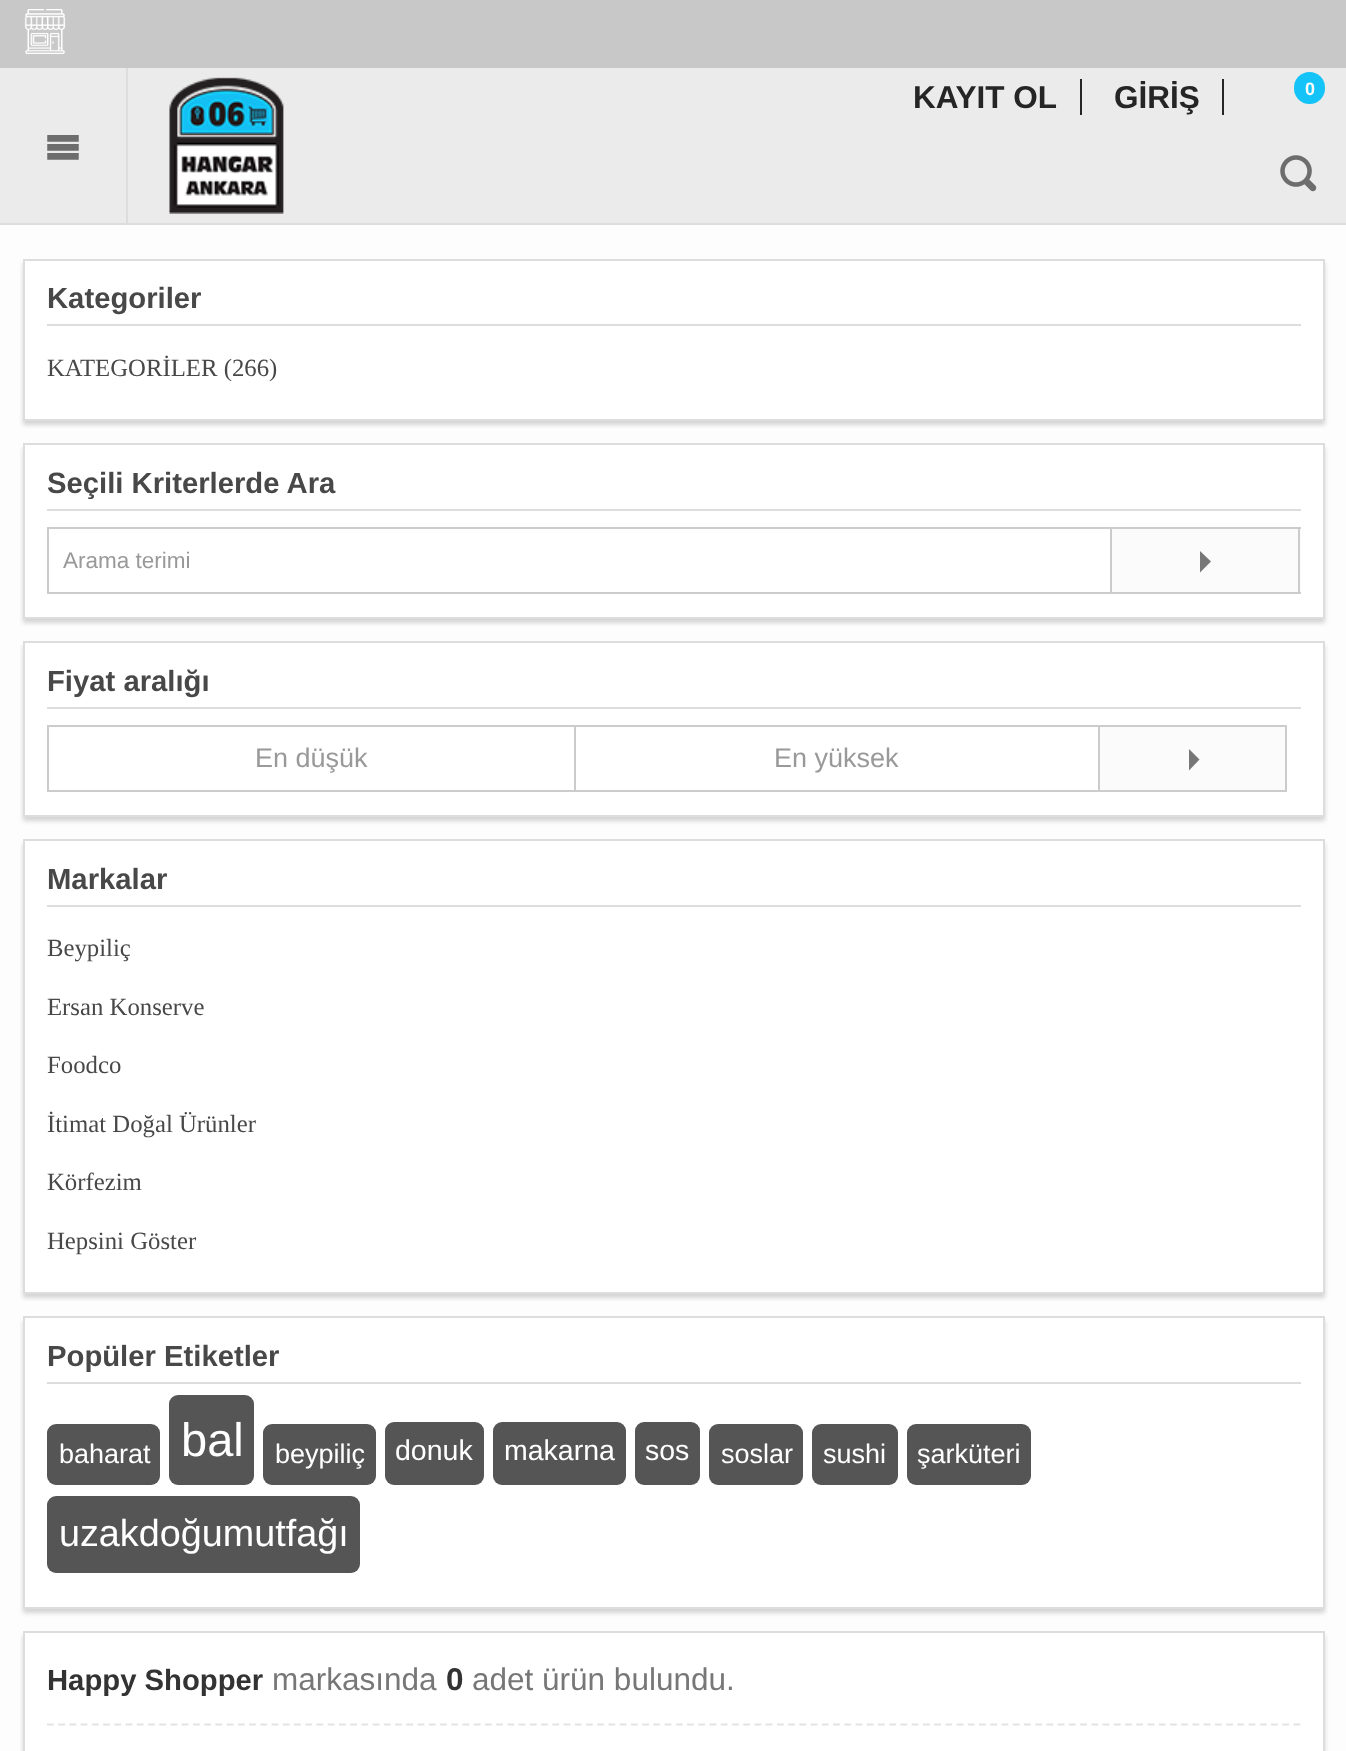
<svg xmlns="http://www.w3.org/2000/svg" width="1346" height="1751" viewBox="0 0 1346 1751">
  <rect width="100%" height="100%" fill="rgb(253,253,253)"/>
  <rect x="0" y="68" width="1346" height="155" fill="rgb(235,235,235)"/>
  <rect x="0" y="223" width="1346" height="2" fill="rgb(221,221,221)"/>
  <rect x="0" y="0" width="1346" height="68" fill="rgb(200,200,200)"/>
  <image x="24" y="9" width="42" height="45" href="pic1.png"/>
  <rect x="126" y="68" width="2" height="155" fill="rgb(221,221,221)"/>
  <image x="47" y="135" width="32" height="25" href="pic2.png"/>
  <image x="169" y="77" width="115" height="137" href="pic3.png"/>
  <text x="913" y="108" font-family="Liberation Sans" font-size="31.5" font-weight="bold" fill="rgb(37,37,37)">KAYIT OL</text>
  <rect x="1080" y="79" width="2" height="36" fill="rgb(37,37,37)"/>
  <text x="1114" y="108" font-family="Liberation Sans" font-size="31.5" font-weight="bold" fill="rgb(37,37,37)">GİRİŞ</text>
  <rect x="1222" y="79" width="2" height="36" fill="rgb(37,37,37)"/>
  <rect x="1294" y="72" width="31" height="32" rx="15.5" fill="rgb(20,195,247)"/>
  <text x="1305" y="95" font-family="Liberation Sans" font-size="18" font-weight="bold" fill="rgb(255,255,255)">0</text>
  <image x="1280" y="155" width="37" height="37" href="pic4.png"/>
  <rect x="23" y="263" width="1302" height="162" fill="rgb(212,212,212)" filter="blur(2px)"/>
  <rect x="24" y="260" width="1300" height="160" fill="rgb(255,255,255)" stroke="rgb(221,221,221)" stroke-width="2"/>
  <rect x="47" y="324" width="1254" height="2" fill="rgb(221,221,221)"/>
  <text x="47" y="308" font-family="Liberation Sans" font-size="29.25" font-weight="bold" fill="rgb(72,72,72)">Kategoriler</text>
  <text x="47" y="376" font-family="Liberation Serif" font-size="24.75" fill="rgb(72,72,72)">KATEGORİLER (266)</text>
  <rect x="23" y="448" width="1302" height="175" fill="rgb(212,212,212)" filter="blur(2px)"/>
  <rect x="24" y="444" width="1300" height="174" fill="rgb(255,255,255)" stroke="rgb(221,221,221)" stroke-width="2"/>
  <rect x="47" y="509" width="1254" height="2" fill="rgb(221,221,221)"/>
  <text x="47" y="493" font-family="Liberation Sans" font-size="29.25" font-weight="bold" fill="rgb(72,72,72)">Seçili Kriterlerde Ara</text>
  <rect x="48" y="528" width="1063" height="65" fill="none" stroke="rgb(204,204,204)" stroke-width="2"/>
  <text x="63" y="568" font-family="Liberation Sans" font-size="22.5" fill="rgb(153,153,153)">Arama terimi</text>
  <rect x="1112" y="529" width="189" height="63" fill="rgb(251,251,251)"/>
  <rect x="1112" y="527" width="189" height="2" fill="rgb(204,204,204)"/>
  <rect x="1298" y="527" width="2" height="67" fill="rgb(204,204,204)"/>
  <rect x="1112" y="592" width="189" height="2" fill="rgb(204,204,204)"/>
  <path d="M1200 572.5L1211 561.5L1200 551Z" fill="rgb(119,119,119)"/>
  <rect x="23" y="646" width="1302" height="175" fill="rgb(212,212,212)" filter="blur(2px)"/>
  <rect x="24" y="642" width="1300" height="174" fill="rgb(255,255,255)" stroke="rgb(221,221,221)" stroke-width="2"/>
  <rect x="47" y="707" width="1254" height="2" fill="rgb(221,221,221)"/>
  <text x="47" y="691" font-family="Liberation Sans" font-size="29.25" font-weight="bold" fill="rgb(72,72,72)">Fiyat aralığı</text>
  <rect x="47" y="725" width="527" height="2" fill="rgb(204,204,204)"/>
  <rect x="47" y="790" width="527" height="2" fill="rgb(204,204,204)"/>
  <rect x="47" y="725" width="2" height="67" fill="rgb(204,204,204)"/>
  <text x="255" y="767" font-family="Liberation Sans" font-size="27" fill="rgb(153,153,153)">En düşük</text>
  <rect x="575" y="726" width="524" height="65" fill="none" stroke="rgb(204,204,204)" stroke-width="2"/>
  <text x="774" y="767" font-family="Liberation Sans" font-size="27" fill="rgb(153,153,153)">En yüksek</text>
  <rect x="1100" y="727" width="185" height="63" fill="rgb(251,251,251)"/>
  <rect x="1100" y="725" width="187" height="2" fill="rgb(204,204,204)"/>
  <rect x="1285" y="725" width="2" height="67" fill="rgb(204,204,204)"/>
  <rect x="1100" y="790" width="187" height="2" fill="rgb(204,204,204)"/>
  <path d="M1189 770.5L1199.5 759.5L1189 749Z" fill="rgb(119,119,119)"/>
  <rect x="23" y="844" width="1302" height="454" fill="rgb(212,212,212)" filter="blur(2px)"/>
  <rect x="24" y="840" width="1300" height="453" fill="rgb(255,255,255)" stroke="rgb(221,221,221)" stroke-width="2"/>
  <rect x="47" y="905" width="1254" height="2" fill="rgb(221,221,221)"/>
  <text x="47" y="889" font-family="Liberation Sans" font-size="29.25" font-weight="bold" fill="rgb(72,72,72)">Markalar</text>
  <g font-family="Liberation Serif" font-size="24.75" fill="rgb(72,72,72)">
    <text x="47" y="956">Beypiliç</text>
    <text x="47" y="1015">Ersan Konserve</text>
    <text x="47" y="1073">Foodco</text>
    <text x="47" y="1132">İtimat Doğal Ürünler</text>
    <text x="47" y="1190">Körfezim</text>
    <text x="47" y="1249">Hepsini Göster</text>
  </g>
  <rect x="23" y="1321" width="1302" height="292" fill="rgb(212,212,212)" filter="blur(2px)"/>
  <rect x="24" y="1317" width="1300" height="291" fill="rgb(255,255,255)" stroke="rgb(221,221,221)" stroke-width="2"/>
  <rect x="47" y="1382" width="1254" height="2" fill="rgb(221,221,221)"/>
  <text x="47" y="1366" font-family="Liberation Sans" font-size="29.25" font-weight="bold" fill="rgb(72,72,72)">Popüler Etiketler</text>
  <rect x="47" y="1424" width="113" height="61" rx="9" fill="rgb(85,85,85)"/>
  <text x="59" y="1463" font-family="Liberation Sans" font-size="27" fill="rgb(255,255,255)">baharat</text>
  <rect x="169" y="1395" width="85" height="90" rx="9" fill="rgb(85,85,85)"/>
  <text x="181" y="1456" font-family="Liberation Sans" font-size="47" fill="rgb(255,255,255)">bal</text>
  <rect x="263" y="1424" width="113" height="61" rx="9" fill="rgb(85,85,85)"/>
  <text x="275" y="1463" font-family="Liberation Sans" font-size="27" fill="rgb(255,255,255)">beypiliç</text>
  <rect x="385" y="1422" width="99" height="63" rx="9" fill="rgb(85,85,85)"/>
  <text x="395" y="1460" font-family="Liberation Sans" font-size="28.5" fill="rgb(255,255,255)">donuk</text>
  <rect x="493" y="1422" width="133" height="63" rx="9" fill="rgb(85,85,85)"/>
  <text x="504" y="1460" font-family="Liberation Sans" font-size="28.5" fill="rgb(255,255,255)">makarna</text>
  <rect x="635" y="1422" width="65" height="63" rx="9" fill="rgb(85,85,85)"/>
  <text x="645" y="1460" font-family="Liberation Sans" font-size="28.5" fill="rgb(255,255,255)">sos</text>
  <rect x="709" y="1424" width="94" height="61" rx="9" fill="rgb(85,85,85)"/>
  <text x="721" y="1463" font-family="Liberation Sans" font-size="27" fill="rgb(255,255,255)">soslar</text>
  <rect x="812" y="1424" width="86" height="61" rx="9" fill="rgb(85,85,85)"/>
  <text x="823" y="1463" font-family="Liberation Sans" font-size="27" fill="rgb(255,255,255)">sushi</text>
  <rect x="907" y="1424" width="124" height="61" rx="9" fill="rgb(85,85,85)"/>
  <text x="917" y="1463" font-family="Liberation Sans" font-size="27" fill="rgb(255,255,255)">şarküteri</text>
  <rect x="47" y="1496" width="313" height="77" rx="9" fill="rgb(85,85,85)"/>
  <text x="59" y="1546" font-family="Liberation Sans" font-size="37.75" fill="rgb(255,255,255)">uzakdoğumutfağı</text>
  <rect x="23" y="1636" width="1302" height="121" fill="rgb(212,212,212)" filter="blur(2px)"/>
  <rect x="24" y="1632" width="1300" height="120" fill="rgb(255,255,255)" stroke="rgb(221,221,221)" stroke-width="2"/>
  <text x="47" y="1690" font-family="Liberation Sans" font-size="29.25" font-weight="bold" fill="rgb(51,51,51)">Happy Shopper</text>
  <text x="272" y="1690" font-family="Liberation Sans" font-size="31.5" fill="rgb(119,119,119)">markasında</text>
  <text x="446" y="1690" font-family="Liberation Sans" font-size="31.5" font-weight="bold" fill="rgb(51,51,51)">0</text>
  <text x="472" y="1690" font-family="Liberation Sans" font-size="31.5" fill="rgb(119,119,119)">adet ürün bulundu.</text>
  <path d="M47 1724.5H1300.5" fill="none" stroke="rgb(227,227,227)" stroke-width="2.2" stroke-dasharray="6.75 4.48"/>
</svg>
